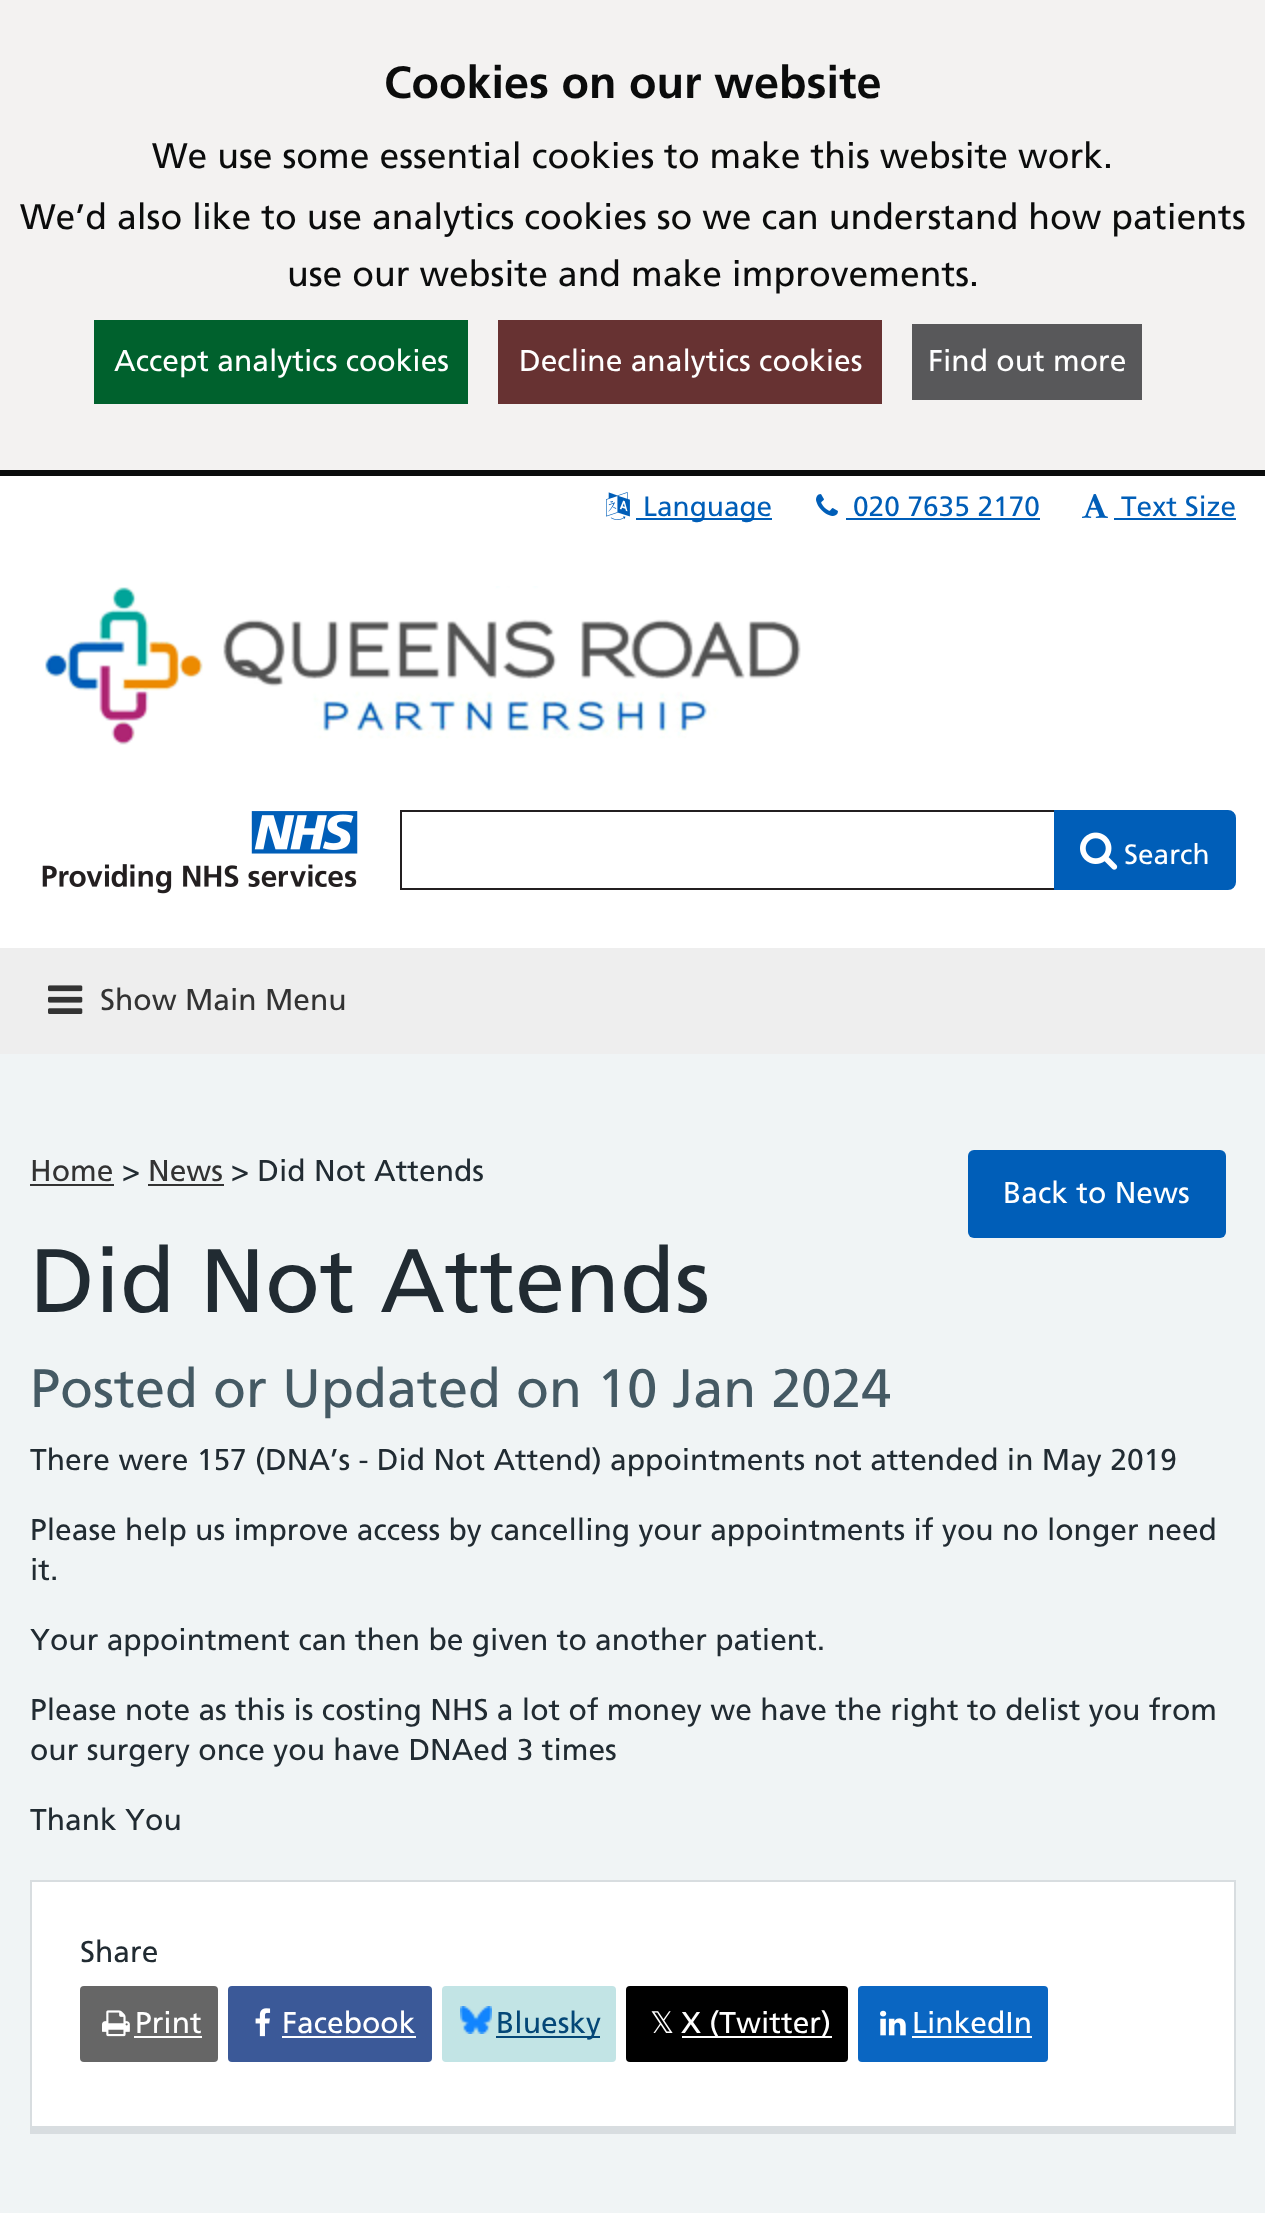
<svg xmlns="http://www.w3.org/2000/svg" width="1265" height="2213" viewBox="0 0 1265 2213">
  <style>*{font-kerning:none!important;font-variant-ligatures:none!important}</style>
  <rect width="100%" height="100%" fill="rgb(240,244,245)"/>
  <rect x="0" y="0" width="1265" height="470" fill="rgb(243,242,241)"/>
  <rect x="0" y="470" width="1265" height="6" fill="rgb(11,12,12)"/>
  <text x="384" y="98" font-family="Frutiger" font-size="45" font-weight="bold" fill="rgb(11,12,12)">Cookies on our website</text>
  <g font-family="Frutiger" font-size="35.6" fill="rgb(11,12,12)">
    <text x="152" y="168">We use some essential cookies to make this website work.</text>
    <text x="20" y="229">We’d also like to use analytics cookies so we can understand how patients</text>
    <text x="287" y="286">use our website and make improvements.</text>
  </g>
  <rect x="94" y="320" width="374" height="84" fill="rgb(0,97,45)"/>
  <text x="114" y="371" font-family="Frutiger" font-size="30" fill="rgb(255,255,255)">Accept analytics cookies</text>
  <rect x="498" y="320" width="384" height="84" fill="rgb(103,50,50)"/>
  <text x="519" y="371" font-family="Frutiger" font-size="30" fill="rgb(255,255,255)">Decline analytics cookies</text>
  <rect x="912" y="324" width="230" height="76" fill="rgb(88,88,90)"/>
  <text x="928" y="371" font-family="Frutiger" font-size="30" fill="rgb(255,255,255)">Find out more</text>
  <rect x="0" y="476" width="1265" height="472" fill="rgb(255,255,255)"/>
  <image x="606" y="492" width="24" height="28" href="pic1.png"/>
  <rect x="636" y="518" width="136" height="2" fill="rgb(0,94,184)"/>
  <text x="643" y="516" font-family="Frutiger" font-size="28" fill="rgb(0,94,184)">Language</text>
  <image x="816" y="494" width="22" height="22" href="pic2.png"/>
  <text x="853" y="516" font-family="Frutiger" font-size="28" fill="rgb(0,94,184)">020 7635 2170</text>
  <rect x="846" y="518" width="194" height="2" fill="rgb(0,94,184)"/>
  <image x="1082" y="494" width="26" height="24" href="pic3.png"/>
  <text x="1121" y="516" font-family="Frutiger" font-size="28" fill="rgb(0,94,184)">Text Size</text>
  <rect x="1114" y="518" width="122" height="2" fill="rgb(0,94,184)"/>
  <image x="45" y="586" width="756" height="159" href="pic4.png"/>
  <image x="42" y="811" width="316" height="83" href="pic5.png"/>
  <rect x="401" y="811" width="654" height="78" fill="none" stroke="rgb(35,31,32)" stroke-width="2"/>
  <path d="M1055 811H1228C1232 811 1235 814 1235 818V882C1235 886 1232 889 1228 889H1055Z" fill="rgb(0,94,184)" stroke="rgb(0,94,184)" stroke-width="2"/>
  <image x="1080" y="832" width="38" height="38" href="pic6.png"/>
  <text x="1124" y="864" font-family="Frutiger" font-size="28" fill="rgb(255,255,255)">Search</text>
  <rect x="0" y="948" width="1265" height="106" fill="rgb(238,238,238)"/>
  <image x="48" y="985" width="35" height="29" href="pic7.png"/>
  <g font-family="Frutiger" font-size="30" fill="rgb(51,51,51)">
    <text x="100" y="1010">Show Main Menu</text>
    <text x="30" y="1181">Home</text>
  </g>
  <rect x="30" y="1184" width="84" height="2" fill="rgb(51,51,51)"/>
  <text x="122" y="1181" font-family="Frutiger" font-size="30" fill="rgb(33,43,50)">&gt;</text>
  <text x="148" y="1181" font-family="Frutiger" font-size="30" fill="rgb(51,51,51)">News</text>
  <rect x="148" y="1184" width="76" height="2" fill="rgb(51,51,51)"/>
  <text x="231" y="1181" font-family="Frutiger" font-size="30" fill="rgb(33,43,50)">&gt; Did Not Attends</text>
  <rect x="968" y="1150" width="258" height="88" rx="6" fill="rgb(0,94,184)"/>
  <text x="1003" y="1203" font-family="Frutiger" font-size="30" fill="rgb(255,255,255)">Back to News</text>
  <text x="30" y="1312" font-family="Frutiger" font-size="90" fill="rgb(33,43,50)">Did Not Attends</text>
  <text x="30" y="1407" font-family="Frutiger" font-size="54" fill="rgb(69,90,100)">Posted or Updated on 10 Jan 2024</text>
  <g font-family="Frutiger" font-size="30" fill="rgb(33,43,50)">
    <text x="30" y="1470">There were 157 (DNA’s - Did Not Attend) appointments not attended in May 2019</text>
    <text>
      <tspan x="30" y="1540">Please help us improve access by cancelling your appointments if you no longer need</tspan>
      <tspan x="30" y="1580">it.</tspan>
    </text>
    <text x="30" y="1650">Your appointment can then be given to another patient.</text>
    <text>
      <tspan x="30" y="1720">Please note as this is costing NHS a lot of money we have the right to delist you from</tspan>
      <tspan x="30" y="1760">our surgery once you have DNAed 3 times</tspan>
    </text>
    <text x="30" y="1830">Thank You</text>
  </g>
  <rect x="32" y="1882" width="1202" height="244" fill="rgb(255,255,255)"/>
  <rect x="30" y="1880" width="1206" height="2" fill="rgb(216,221,224)"/>
  <rect x="1234" y="1880" width="2" height="254" fill="rgb(216,221,224)"/>
  <rect x="30" y="2126" width="1206" height="8" fill="rgb(216,221,224)"/>
  <rect x="30" y="1880" width="2" height="254" fill="rgb(216,221,224)"/>
  <text x="80" y="1962" font-family="Frutiger" font-size="30" fill="rgb(33,43,50)">Share</text>
  <rect x="80" y="1986" width="138" height="76" rx="4" fill="rgb(102,102,102)"/>
  <image x="102" y="2010" width="28" height="27" href="pic8.png"/>
  <text x="135" y="2033" font-family="Frutiger" font-size="30" fill="rgb(255,255,255)">Print</text>
  <rect x="134" y="2036" width="68" height="2" fill="rgb(255,255,255)"/>
  <rect x="228" y="1986" width="204" height="76" rx="4" fill="rgb(59,89,152)"/>
  <image x="255" y="2008" width="16" height="29" href="pic9.png"/>
  <text x="282" y="2033" font-family="Frutiger" font-size="30" fill="rgb(255,255,255)">Facebook</text>
  <rect x="282" y="2036" width="134" height="2" fill="rgb(255,255,255)"/>
  <rect x="442" y="1986" width="174" height="76" rx="4" fill="rgb(194,228,229)"/>
  <image x="460" y="2006" width="32" height="28" href="pic10.png"/>
  <rect x="496" y="2036" width="104" height="2" fill="rgb(4,71,119)"/>
  <text x="496" y="2033" font-family="Frutiger" font-size="30" fill="rgb(4,71,119)">Bluesky</text>
  <rect x="626" y="1986" width="222" height="76" rx="4" fill="rgb(0,0,0)"/>
  <text x="650" y="2033" font-family="DejaVu Sans" font-size="30" fill="rgb(255,255,255)">𝕏</text>
  <rect x="682" y="2036" width="150" height="2" fill="rgb(255,255,255)"/>
  <text x="681" y="2033" font-family="Frutiger" font-size="30" fill="rgb(255,255,255)">X (Twitter)</text>
  <rect x="858" y="1986" width="190" height="76" rx="4" fill="rgb(10,102,194)"/>
  <image x="880" y="2010" width="26" height="26" href="pic11.png"/>
  <text x="912" y="2033" font-family="Frutiger" font-size="30" fill="rgb(255,255,255)">LinkedIn</text>
  <rect x="912" y="2036" width="120" height="2" fill="rgb(255,255,255)"/>
</svg>
